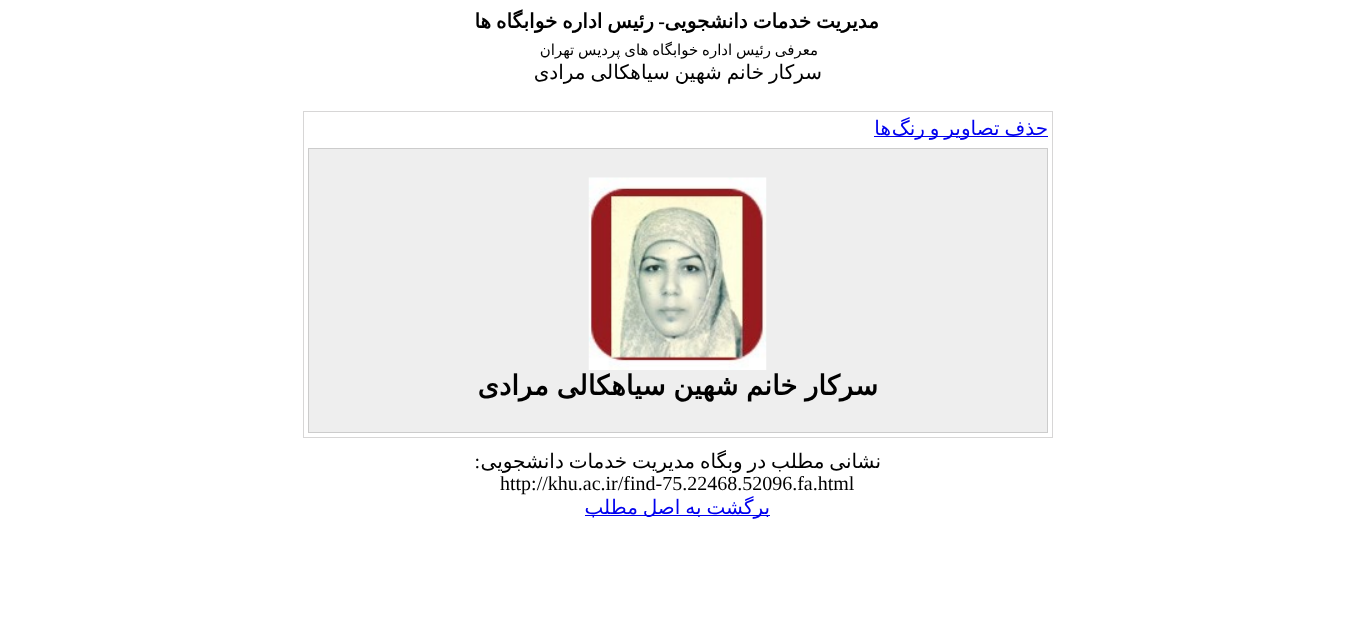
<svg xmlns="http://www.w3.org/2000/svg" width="1354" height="635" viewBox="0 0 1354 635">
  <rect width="100%" height="100%" fill="rgb(255,255,255)"/>
  <text x="879" y="28" word-spacing="-1.5" font-family="DejaVu Sans" font-size="20" font-weight="bold" direction="rtl" fill="rgb(0,0,0)">مدیریت خدمات دانشجویی</text>
  <text x="665" y="28" font-family="Liberation Serif" font-size="20" font-weight="bold" direction="rtl" fill="rgb(0,0,0)">-</text>
  <text x="654" y="28" word-spacing="-1.5" font-family="DejaVu Sans" font-size="20" font-weight="bold" direction="rtl" fill="rgb(0,0,0)">رئیس اداره خوابگاه ها</text>
  <text x="818" y="55" word-spacing="-1" font-family="DejaVu Sans" font-size="15" direction="rtl" fill="rgb(0,0,0)">معرفی رئیس اداره خوابگاه های پردیس تهران</text>
  <text x="822" y="79" word-spacing="-1.5" font-family="DejaVu Sans" font-size="20" direction="rtl" fill="rgb(0,0,0)">سرکار خانم شهین سیاهکالی مرادی</text>
  <rect x="303.5" y="111.5" width="749" height="326" fill="none" stroke="rgb(215,214,214)"/>
  <rect x="874" y="136" width="174" height="1" fill="rgb(0,0,238)"/>
  <g font-family="DejaVu Sans" font-size="20" direction="rtl" fill="rgb(0,0,238)">
    <text x="1048" y="135" word-spacing="-1.5">حذف تصاویر و رنگ</text>
    <text x="891" y="135">ها</text>
  </g>
  <rect x="308.5" y="148.5" width="739" height="284" fill="rgb(238,238,238)" stroke="rgb(204,204,204)"/>
  <image x="588" y="177" width="179" height="193" href="pic1.png"/>
  <text x="878" y="395" word-spacing="-1" font-family="DejaVu Sans" font-size="27.5" font-weight="bold" direction="rtl" fill="rgb(0,0,0)">سرکار خانم شهین سیاهکالی مرادی</text>
  <text x="881" y="468" word-spacing="-1.5" font-family="DejaVu Sans" font-size="20" direction="rtl" fill="rgb(0,0,0)">نشانی مطلب در وبگاه مدیریت خدمات دانشجویی</text>
  <text x="480" y="468" font-family="Liberation Serif" font-size="20" direction="rtl" fill="rgb(0,0,0)">:</text>
  <text x="500" y="490" font-family="Liberation Serif" font-size="20" fill="rgb(0,0,0)">http://khu.ac.ir/find-75.22468.52096.fa.html</text>
  <rect x="585" y="515" width="185" height="1" fill="rgb(0,0,238)"/>
  <text x="770" y="514" word-spacing="-1.5" font-family="DejaVu Sans" font-size="20" direction="rtl" fill="rgb(0,0,238)">برگشت به اصل مطلب</text>
</svg>
